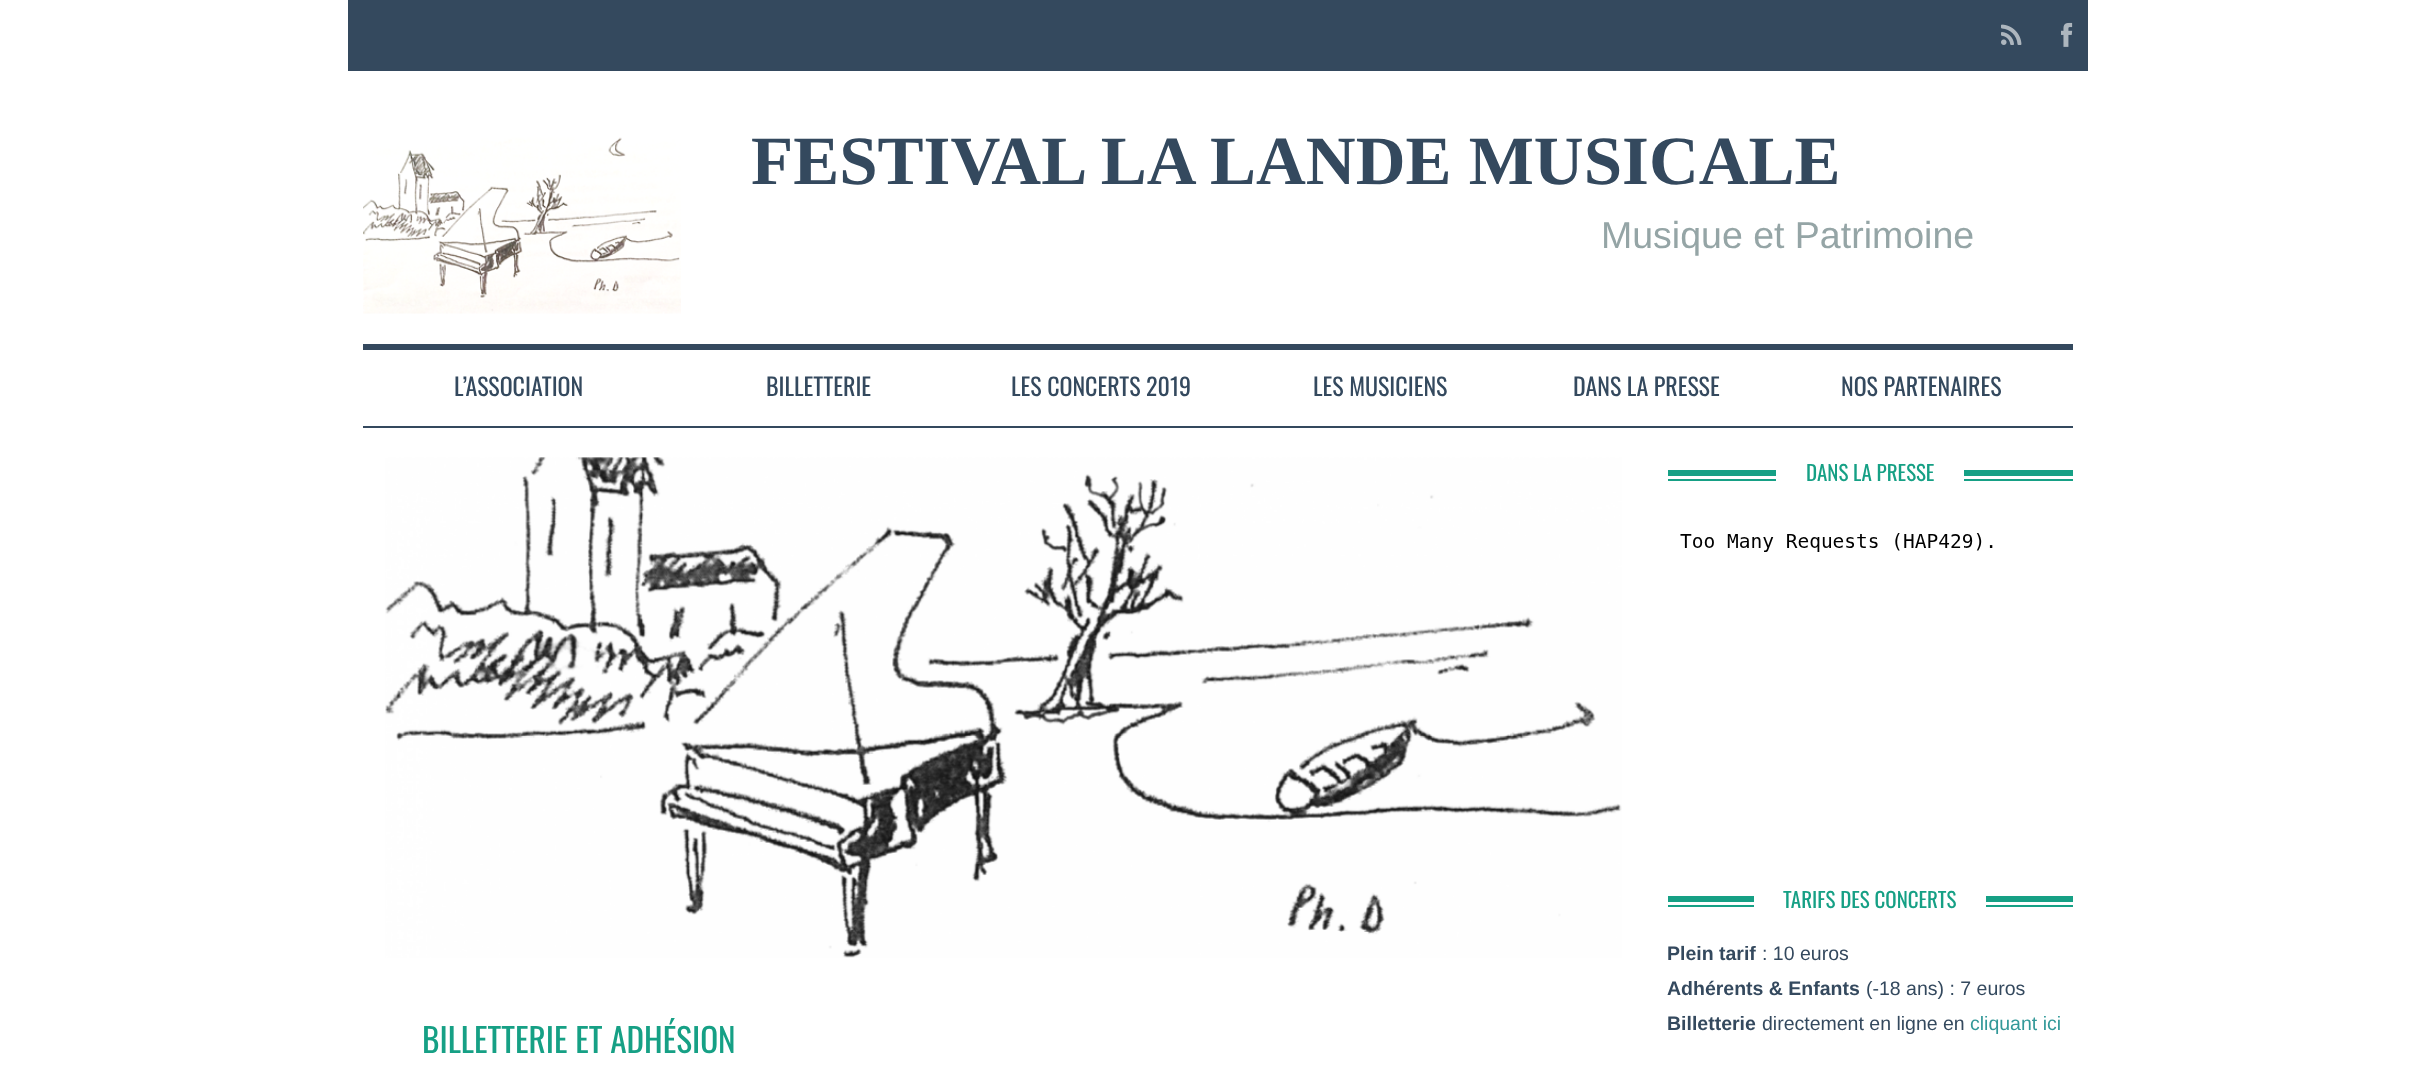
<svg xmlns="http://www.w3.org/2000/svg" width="2434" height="1078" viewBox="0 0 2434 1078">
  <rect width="100%" height="100%" fill="rgb(255,255,255)"/>
  <rect x="348" y="0" width="1740" height="71" fill="rgb(52,73,94)"/>
  <image x="2001" y="24" width="21" height="21" href="pic1.png"/>
  <image x="2061" y="22" width="12" height="25" href="pic2.png"/>
  <rect x="363" y="344" width="1710" height="6" fill="rgb(52,73,94)"/>
  <image x="363" y="137" width="318" height="177" href="pic3.png"/>
  <text x="751" y="184" font-family="Liberation Serif" font-size="69" font-weight="bold" fill="rgb(52,73,94)">FESTIVAL LA LANDE MUSICALE</text>
  <text x="1601" y="248" font-family="Liberation Sans" font-size="37.5" fill="rgb(149,165,166)">Musique et Patrimoine</text>
  <rect x="363" y="426" width="1710" height="2" fill="rgb(52,73,94)"/>
  <g font-family="Oswald" font-size="24" fill="rgb(52,73,94)">
    <text x="454" y="396">L’ASSOCIATION</text>
    <text x="766" y="396">BILLETTERIE</text>
    <text x="1011" y="396">LES CONCERTS 2019</text>
    <text x="1313" y="396">LES MUSICIENS</text>
    <text x="1573" y="396">DANS LA PRESSE</text>
    <text x="1841" y="396">NOS PARTENAIRES</text>
  </g>
  <image x="385" y="457" width="1237" height="501" href="pic4.png"/>
  <text x="422" y="1053" font-family="Oswald" font-size="33.25" fill="rgb(22,160,133)">BILLETTERIE ET ADHÉSION</text>
  <rect x="1668" y="470" width="405" height="6" fill="rgb(22,160,133)"/>
  <rect x="1668" y="479" width="405" height="2" fill="rgb(22,160,133)"/>
  <rect x="1776" y="470" width="188" height="11" fill="rgb(255,255,255)"/>
  <text x="1806" y="481" font-family="Oswald" font-size="21" fill="rgb(22,160,133)">DANS LA PRESSE</text>
  <image x="1680" y="533" width="313" height="19" href="pic5.png"/>
  <rect x="1668" y="896" width="405" height="6" fill="rgb(22,160,133)"/>
  <rect x="1668" y="905" width="405" height="2" fill="rgb(22,160,133)"/>
  <rect x="1754" y="896" width="232" height="11" fill="rgb(255,255,255)"/>
  <text x="1783" y="908" font-family="Oswald" font-size="21" fill="rgb(22,160,133)">TARIFS DES CONCERTS</text>
  <text x="1667" y="960" font-family="Liberation Sans" font-size="19.5" font-weight="bold" fill="rgb(52,73,94)">Plein tarif</text>
  <text x="1762" y="960" font-family="Liberation Sans" font-size="19.5" fill="rgb(52,73,94)">: 10 euros</text>
  <text x="1667" y="995" font-family="Liberation Sans" font-size="19.5" font-weight="bold" fill="rgb(52,73,94)">Adhérents &amp; Enfants</text>
  <text x="1866" y="995" font-family="Liberation Sans" font-size="19.5" fill="rgb(52,73,94)">(-18 ans) : 7 euros</text>
  <text x="1667" y="1030" font-family="Liberation Sans" font-size="19.5" font-weight="bold" fill="rgb(52,73,94)">Billetterie</text>
  <text x="1762" y="1030" font-family="Liberation Sans" font-size="19.5" fill="rgb(52,73,94)">directement en ligne en</text>
  <text x="1970" y="1030" font-family="Liberation Sans" font-size="19.5" fill="rgb(51,153,153)">cliquant ici</text>
</svg>
